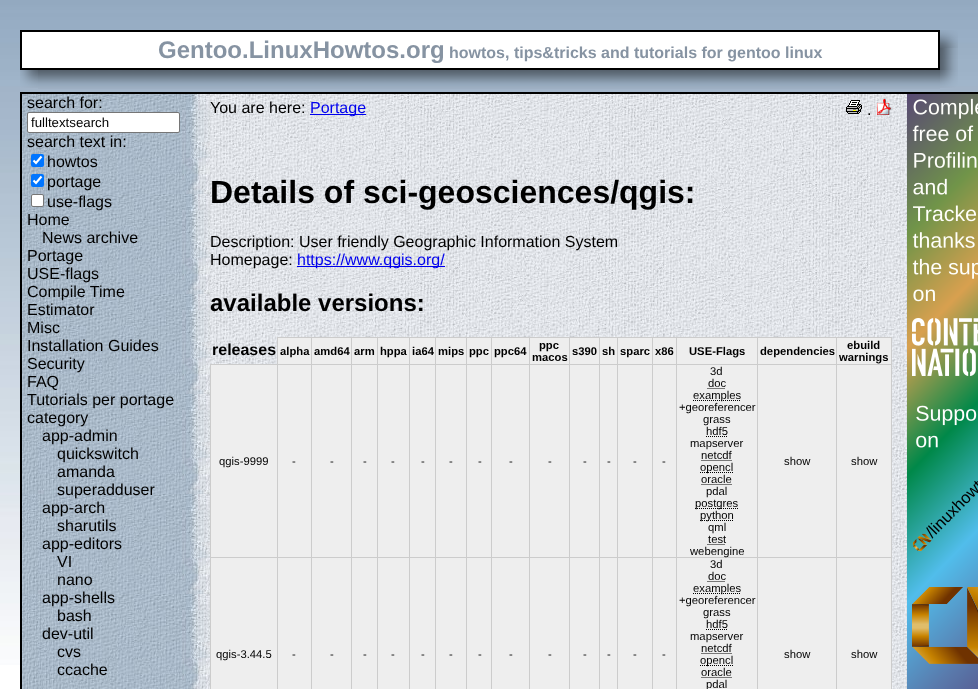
<svg xmlns="http://www.w3.org/2000/svg" width="978" height="689" viewBox="0 0 978 689">
  <rect width="100%" height="100%" fill="rgb(255,255,255)"/>
  <image x="0" y="0" width="978" height="665" href="pic1.png"/>
  <rect x="21" y="31" width="918" height="38" fill="rgb(255,255,255)" stroke="rgb(0,0,0)" stroke-width="2"/>
  <text x="158" y="58" font-family="Liberation Sans" font-size="24" font-weight="bold" fill="rgb(134,147,162)">Gentoo.LinuxHowtos.org</text>
  <text x="449" y="58" font-family="Liberation Sans" font-size="16" font-weight="bold" fill="rgb(134,147,162)">howtos, tips&amp;tricks and tutorials for gentoo linux</text>
  <image x="940" y="48" width="18" height="4" href="pic2.png"/>
  <image x="940" y="30" width="18" height="18" href="pic3.png"/>
  <image x="940" y="52" width="18" height="18" href="pic4.png"/>
  <image x="20" y="70" width="18" height="18" href="pic5.png"/>
  <image x="38" y="70" width="902" height="19" href="pic6.png"/>
  <image x="940" y="70" width="18" height="18" href="pic7.png"/>
  <image x="210" y="94" width="697" height="595" href="pic8.png"/>
  <rect x="21" y="93" width="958" height="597" fill="none" stroke="rgb(0,0,0)" stroke-width="2"/>
  <image x="22" y="94" width="188" height="595" href="pic9.png"/>
  <text x="27" y="108" font-family="Liberation Sans" font-size="16" fill="rgb(0,0,0)">search for:</text>
  <rect x="27.5" y="112.5" width="152" height="20" rx="1.5" fill="rgb(255,255,255)" stroke="rgb(118,118,118)"/>
  <text x="31" y="127" font-family="Liberation Sans" font-size="13.25" fill="rgb(0,0,0)">fulltextsearch</text>
  <text x="27" y="147" font-family="Liberation Sans" font-size="16" fill="rgb(0,0,0)">search text in:</text>
  <rect x="31" y="154" width="13" height="13" rx="2" fill="rgb(0,117,255)"/>
  <path d="M33.5 160.5L36 163L41.5 156.5" fill="none" stroke="rgb(255,255,255)" stroke-width="2.1"/>
  <text x="47" y="167" font-family="Liberation Sans" font-size="16" fill="rgb(0,0,0)">howtos</text>
  <rect x="31" y="174" width="13" height="13" rx="2" fill="rgb(0,117,255)"/>
  <path d="M33.5 180.5L36 183L41.5 176.5" fill="none" stroke="rgb(255,255,255)" stroke-width="2.1"/>
  <text x="47" y="187" font-family="Liberation Sans" font-size="16" fill="rgb(0,0,0)">portage</text>
  <rect x="31.5" y="194.5" width="12" height="12" rx="1.5" fill="rgb(255,255,255)" stroke="rgb(118,118,118)"/>
  <g font-family="Liberation Sans" font-size="16" fill="rgb(0,0,0)">
    <text x="47" y="207">use-flags</text>
    <text x="27" y="225">Home</text>
    <text x="42" y="243">News archive</text>
    <text>
      <tspan x="27" y="261">Portage</tspan>
      <tspan x="27" y="279">USE-flags</tspan>
      <tspan x="27" y="297">Compile Time</tspan>
      <tspan x="27" y="315">Estimator</tspan>
      <tspan x="27" y="333">Misc</tspan>
      <tspan x="27" y="351">Installation Guides</tspan>
      <tspan x="27" y="369">Security</tspan>
      <tspan x="27" y="387">FAQ</tspan>
      <tspan x="27" y="405">Tutorials per portage</tspan>
      <tspan x="27" y="423">category</tspan>
    </text>
    <text x="42" y="441">app-admin</text>
    <text>
      <tspan x="57" y="459">quickswitch</tspan>
      <tspan x="57" y="477">amanda</tspan>
      <tspan x="57" y="495">superadduser</tspan>
    </text>
    <text x="42" y="513">app-arch</text>
    <text x="57" y="531">sharutils</text>
    <text x="42" y="549">app-editors</text>
    <text>
      <tspan x="57" y="567">VI</tspan>
      <tspan x="57" y="585">nano</tspan>
    </text>
    <text x="42" y="603">app-shells</text>
    <text x="57" y="621">bash</text>
    <text x="42" y="639">dev-util</text>
    <text>
      <tspan x="57" y="657">cvs</tspan>
      <tspan x="57" y="675">ccache</tspan>
    </text>
    <text x="210" y="113">You are here:</text>
  </g>
  <rect x="310" y="114" width="56" height="1" fill="rgb(0,0,238)"/>
  <text x="310" y="113" font-family="Liberation Sans" font-size="16" fill="rgb(0,0,238)">Portage</text>
  <image x="846" y="100" width="16" height="14" href="pic10.png"/>
  <text x="867" y="115" font-family="Liberation Sans" font-size="16" fill="rgb(0,0,0)">.</text>
  <image x="877" y="99" width="15" height="16" href="pic11.png"/>
  <text x="210" y="203" font-family="Liberation Sans" font-size="32" font-weight="bold" fill="rgb(0,0,0)">Details of sci-geosciences/qgis:</text>
  <g font-family="Liberation Sans" font-size="16" fill="rgb(0,0,0)">
    <text>
      <tspan x="210" y="247">Description: User friendly Geographic Information System</tspan>
      <tspan x="210" y="265">Homepage:</tspan>
    </text>
  </g>
  <rect x="297" y="266" width="148" height="1" fill="rgb(0,0,238)"/>
  <text x="297" y="265" font-family="Liberation Sans" font-size="16" fill="rgb(0,0,238)">https://www.qgis.org/</text>
  <text x="210" y="311" font-family="Liberation Sans" font-size="24" font-weight="bold" fill="rgb(0,0,0)">available versions:</text>
  <text x="212" y="355" font-family="Liberation Sans" font-size="16" font-weight="bold" fill="rgb(0,0,0)">releases</text>
  <rect x="278" y="338" width="33" height="26" fill="rgb(238,238,238)"/>
  <rect x="836" y="337" width="56" height="1" fill="rgb(204,204,204)"/>
  <rect x="836" y="364" width="56" height="1" fill="rgb(204,204,204)"/>
  <rect x="836" y="557" width="56" height="1" fill="rgb(204,204,204)"/>
  <rect x="836" y="557" width="1" height="132" fill="rgb(204,204,204)"/>
  <rect x="757" y="557" width="80" height="1" fill="rgb(204,204,204)"/>
  <rect x="836" y="364" width="1" height="194" fill="rgb(204,204,204)"/>
  <rect x="757" y="364" width="80" height="1" fill="rgb(204,204,204)"/>
  <rect x="836" y="337" width="1" height="28" fill="rgb(204,204,204)"/>
  <rect x="757" y="337" width="80" height="1" fill="rgb(204,204,204)"/>
  <rect x="757" y="557" width="1" height="132" fill="rgb(204,204,204)"/>
  <rect x="676" y="557" width="82" height="1" fill="rgb(204,204,204)"/>
  <rect x="757" y="364" width="1" height="194" fill="rgb(204,204,204)"/>
  <rect x="676" y="364" width="82" height="1" fill="rgb(204,204,204)"/>
  <rect x="757" y="337" width="1" height="28" fill="rgb(204,204,204)"/>
  <rect x="676" y="337" width="82" height="1" fill="rgb(204,204,204)"/>
  <rect x="676" y="557" width="1" height="132" fill="rgb(204,204,204)"/>
  <rect x="652" y="557" width="25" height="1" fill="rgb(204,204,204)"/>
  <rect x="676" y="364" width="1" height="194" fill="rgb(204,204,204)"/>
  <rect x="652" y="364" width="25" height="1" fill="rgb(204,204,204)"/>
  <rect x="676" y="337" width="1" height="28" fill="rgb(204,204,204)"/>
  <rect x="652" y="337" width="25" height="1" fill="rgb(204,204,204)"/>
  <rect x="652" y="557" width="1" height="132" fill="rgb(204,204,204)"/>
  <rect x="617" y="557" width="36" height="1" fill="rgb(204,204,204)"/>
  <rect x="652" y="364" width="1" height="194" fill="rgb(204,204,204)"/>
  <rect x="617" y="364" width="36" height="1" fill="rgb(204,204,204)"/>
  <rect x="652" y="337" width="1" height="28" fill="rgb(204,204,204)"/>
  <rect x="617" y="337" width="36" height="1" fill="rgb(204,204,204)"/>
  <rect x="617" y="557" width="1" height="132" fill="rgb(204,204,204)"/>
  <rect x="599" y="557" width="19" height="1" fill="rgb(204,204,204)"/>
  <rect x="617" y="364" width="1" height="194" fill="rgb(204,204,204)"/>
  <rect x="599" y="364" width="19" height="1" fill="rgb(204,204,204)"/>
  <rect x="617" y="337" width="1" height="28" fill="rgb(204,204,204)"/>
  <rect x="599" y="337" width="19" height="1" fill="rgb(204,204,204)"/>
  <rect x="599" y="557" width="1" height="132" fill="rgb(204,204,204)"/>
  <rect x="569" y="557" width="31" height="1" fill="rgb(204,204,204)"/>
  <rect x="599" y="364" width="1" height="194" fill="rgb(204,204,204)"/>
  <rect x="569" y="364" width="31" height="1" fill="rgb(204,204,204)"/>
  <rect x="599" y="337" width="1" height="28" fill="rgb(204,204,204)"/>
  <rect x="569" y="337" width="31" height="1" fill="rgb(204,204,204)"/>
  <rect x="569" y="557" width="1" height="132" fill="rgb(204,204,204)"/>
  <rect x="529" y="557" width="41" height="1" fill="rgb(204,204,204)"/>
  <rect x="569" y="364" width="1" height="194" fill="rgb(204,204,204)"/>
  <rect x="529" y="364" width="41" height="1" fill="rgb(204,204,204)"/>
  <rect x="569" y="337" width="1" height="28" fill="rgb(204,204,204)"/>
  <rect x="529" y="337" width="41" height="1" fill="rgb(204,204,204)"/>
  <rect x="529" y="557" width="1" height="132" fill="rgb(204,204,204)"/>
  <rect x="491" y="557" width="39" height="1" fill="rgb(204,204,204)"/>
  <rect x="529" y="364" width="1" height="194" fill="rgb(204,204,204)"/>
  <rect x="491" y="364" width="39" height="1" fill="rgb(204,204,204)"/>
  <rect x="529" y="337" width="1" height="28" fill="rgb(204,204,204)"/>
  <rect x="491" y="337" width="39" height="1" fill="rgb(204,204,204)"/>
  <rect x="491" y="557" width="1" height="132" fill="rgb(204,204,204)"/>
  <rect x="466" y="557" width="26" height="1" fill="rgb(204,204,204)"/>
  <rect x="491" y="364" width="1" height="194" fill="rgb(204,204,204)"/>
  <rect x="466" y="364" width="26" height="1" fill="rgb(204,204,204)"/>
  <rect x="491" y="337" width="1" height="28" fill="rgb(204,204,204)"/>
  <rect x="466" y="337" width="26" height="1" fill="rgb(204,204,204)"/>
  <rect x="466" y="557" width="1" height="132" fill="rgb(204,204,204)"/>
  <rect x="435" y="557" width="32" height="1" fill="rgb(204,204,204)"/>
  <rect x="466" y="364" width="1" height="194" fill="rgb(204,204,204)"/>
  <rect x="435" y="364" width="32" height="1" fill="rgb(204,204,204)"/>
  <rect x="466" y="337" width="1" height="28" fill="rgb(204,204,204)"/>
  <rect x="435" y="337" width="32" height="1" fill="rgb(204,204,204)"/>
  <rect x="435" y="557" width="1" height="132" fill="rgb(204,204,204)"/>
  <rect x="409" y="557" width="27" height="1" fill="rgb(204,204,204)"/>
  <rect x="435" y="364" width="1" height="194" fill="rgb(204,204,204)"/>
  <rect x="409" y="364" width="27" height="1" fill="rgb(204,204,204)"/>
  <rect x="435" y="337" width="1" height="28" fill="rgb(204,204,204)"/>
  <rect x="409" y="337" width="27" height="1" fill="rgb(204,204,204)"/>
  <rect x="409" y="557" width="1" height="132" fill="rgb(204,204,204)"/>
  <rect x="377" y="557" width="33" height="1" fill="rgb(204,204,204)"/>
  <rect x="409" y="364" width="1" height="194" fill="rgb(204,204,204)"/>
  <rect x="377" y="364" width="33" height="1" fill="rgb(204,204,204)"/>
  <rect x="409" y="337" width="1" height="28" fill="rgb(204,204,204)"/>
  <rect x="377" y="337" width="33" height="1" fill="rgb(204,204,204)"/>
  <rect x="377" y="557" width="1" height="132" fill="rgb(204,204,204)"/>
  <rect x="351" y="557" width="27" height="1" fill="rgb(204,204,204)"/>
  <rect x="377" y="364" width="1" height="194" fill="rgb(204,204,204)"/>
  <rect x="351" y="364" width="27" height="1" fill="rgb(204,204,204)"/>
  <rect x="377" y="337" width="1" height="28" fill="rgb(204,204,204)"/>
  <rect x="351" y="337" width="27" height="1" fill="rgb(204,204,204)"/>
  <rect x="351" y="557" width="1" height="132" fill="rgb(204,204,204)"/>
  <rect x="311" y="557" width="41" height="1" fill="rgb(204,204,204)"/>
  <rect x="351" y="364" width="1" height="194" fill="rgb(204,204,204)"/>
  <rect x="311" y="364" width="41" height="1" fill="rgb(204,204,204)"/>
  <rect x="351" y="337" width="1" height="28" fill="rgb(204,204,204)"/>
  <rect x="311" y="337" width="41" height="1" fill="rgb(204,204,204)"/>
  <rect x="311" y="557" width="1" height="132" fill="rgb(204,204,204)"/>
  <rect x="277" y="557" width="35" height="1" fill="rgb(204,204,204)"/>
  <rect x="311" y="364" width="1" height="194" fill="rgb(204,204,204)"/>
  <rect x="277" y="364" width="35" height="1" fill="rgb(204,204,204)"/>
  <rect x="311" y="337" width="1" height="28" fill="rgb(204,204,204)"/>
  <rect x="277" y="337" width="35" height="1" fill="rgb(204,204,204)"/>
  <rect x="277" y="557" width="1" height="132" fill="rgb(204,204,204)"/>
  <rect x="210" y="557" width="68" height="1" fill="rgb(204,204,204)"/>
  <rect x="277" y="364" width="1" height="194" fill="rgb(204,204,204)"/>
  <rect x="210" y="364" width="68" height="1" fill="rgb(204,204,204)"/>
  <rect x="277" y="337" width="1" height="28" fill="rgb(204,204,204)"/>
  <text x="280" y="355" font-family="Liberation Sans" font-size="11.25" font-weight="bold" fill="rgb(0,0,0)">alpha</text>
  <rect x="312" y="338" width="39" height="26" fill="rgb(238,238,238)"/>
  <text x="314" y="355" font-family="Liberation Sans" font-size="11.25" font-weight="bold" fill="rgb(0,0,0)">amd64</text>
  <rect x="352" y="338" width="25" height="26" fill="rgb(238,238,238)"/>
  <text x="354" y="355" font-family="Liberation Sans" font-size="11.25" font-weight="bold" fill="rgb(0,0,0)">arm</text>
  <rect x="378" y="338" width="31" height="26" fill="rgb(238,238,238)"/>
  <text x="380" y="355" font-family="Liberation Sans" font-size="11.25" font-weight="bold" fill="rgb(0,0,0)">hppa</text>
  <rect x="410" y="338" width="25" height="26" fill="rgb(238,238,238)"/>
  <text x="412" y="355" font-family="Liberation Sans" font-size="11.25" font-weight="bold" fill="rgb(0,0,0)">ia64</text>
  <rect x="436" y="338" width="30" height="26" fill="rgb(238,238,238)"/>
  <text x="438" y="355" font-family="Liberation Sans" font-size="11.25" font-weight="bold" fill="rgb(0,0,0)">mips</text>
  <rect x="467" y="338" width="24" height="26" fill="rgb(238,238,238)"/>
  <text x="469" y="355" font-family="Liberation Sans" font-size="11.25" font-weight="bold" fill="rgb(0,0,0)">ppc</text>
  <rect x="492" y="338" width="37" height="26" fill="rgb(238,238,238)"/>
  <text x="494" y="355" font-family="Liberation Sans" font-size="11.25" font-weight="bold" fill="rgb(0,0,0)">ppc64</text>
  <rect x="530" y="338" width="39" height="26" fill="rgb(238,238,238)"/>
  <g font-family="Liberation Sans" font-size="11.25" font-weight="bold" fill="rgb(0,0,0)">
    <text x="539" y="349">ppc</text>
    <text x="532" y="361">macos</text>
  </g>
  <rect x="570" y="338" width="29" height="26" fill="rgb(238,238,238)"/>
  <text x="572" y="355" font-family="Liberation Sans" font-size="11.25" font-weight="bold" fill="rgb(0,0,0)">s390</text>
  <rect x="600" y="338" width="17" height="26" fill="rgb(238,238,238)"/>
  <text x="602" y="355" font-family="Liberation Sans" font-size="11.25" font-weight="bold" fill="rgb(0,0,0)">sh</text>
  <rect x="618" y="338" width="34" height="26" fill="rgb(238,238,238)"/>
  <text x="620" y="355" font-family="Liberation Sans" font-size="11.25" font-weight="bold" fill="rgb(0,0,0)">sparc</text>
  <rect x="653" y="338" width="23" height="26" fill="rgb(238,238,238)"/>
  <text x="655" y="355" font-family="Liberation Sans" font-size="11.25" font-weight="bold" fill="rgb(0,0,0)">x86</text>
  <rect x="677" y="338" width="80" height="26" fill="rgb(238,238,238)"/>
  <text x="689" y="355" font-family="Liberation Sans" font-size="11.25" font-weight="bold" fill="rgb(0,0,0)">USE-Flags</text>
  <rect x="758" y="338" width="78" height="26" fill="rgb(238,238,238)"/>
  <text x="760" y="355" font-family="Liberation Sans" font-size="11.25" font-weight="bold" fill="rgb(0,0,0)">dependencies</text>
  <rect x="837" y="338" width="54" height="26" fill="rgb(238,238,238)"/>
  <rect x="891" y="557" width="1" height="132" fill="rgb(204,204,204)"/>
  <rect x="891" y="364" width="1" height="194" fill="rgb(204,204,204)"/>
  <rect x="891" y="337" width="1" height="28" fill="rgb(204,204,204)"/>
  <g font-family="Liberation Sans" font-size="11.25" font-weight="bold" fill="rgb(0,0,0)">
    <text x="847" y="349">ebuild</text>
    <text x="839" y="361">warnings</text>
  </g>
  <rect x="211" y="365" width="66" height="192" fill="rgb(238,238,238)"/>
  <rect x="210" y="557" width="1" height="132" fill="rgb(204,204,204)"/>
  <rect x="210" y="364" width="1" height="194" fill="rgb(204,204,204)"/>
  <text x="219" y="465" font-family="Liberation Sans" font-size="11.25" fill="rgb(0,0,0)">qgis-9999</text>
  <rect x="278" y="365" width="33" height="192" fill="rgb(238,238,238)"/>
  <text x="292" y="465" font-family="Liberation Sans" font-size="11.25" fill="rgb(0,0,0)">-</text>
  <rect x="312" y="365" width="39" height="192" fill="rgb(238,238,238)"/>
  <text x="330" y="465" font-family="Liberation Sans" font-size="11.25" fill="rgb(0,0,0)">-</text>
  <rect x="352" y="365" width="25" height="192" fill="rgb(238,238,238)"/>
  <text x="363" y="465" font-family="Liberation Sans" font-size="11.25" fill="rgb(0,0,0)">-</text>
  <rect x="378" y="365" width="31" height="192" fill="rgb(238,238,238)"/>
  <text x="391" y="465" font-family="Liberation Sans" font-size="11.25" fill="rgb(0,0,0)">-</text>
  <rect x="410" y="365" width="25" height="192" fill="rgb(238,238,238)"/>
  <text x="421" y="465" font-family="Liberation Sans" font-size="11.25" fill="rgb(0,0,0)">-</text>
  <rect x="436" y="365" width="30" height="192" fill="rgb(238,238,238)"/>
  <text x="449" y="465" font-family="Liberation Sans" font-size="11.25" fill="rgb(0,0,0)">-</text>
  <rect x="467" y="365" width="24" height="192" fill="rgb(238,238,238)"/>
  <text x="478" y="465" font-family="Liberation Sans" font-size="11.25" fill="rgb(0,0,0)">-</text>
  <rect x="492" y="365" width="37" height="192" fill="rgb(238,238,238)"/>
  <text x="509" y="465" font-family="Liberation Sans" font-size="11.25" fill="rgb(0,0,0)">-</text>
  <rect x="530" y="365" width="39" height="192" fill="rgb(238,238,238)"/>
  <text x="548" y="465" font-family="Liberation Sans" font-size="11.25" fill="rgb(0,0,0)">-</text>
  <rect x="570" y="365" width="29" height="192" fill="rgb(238,238,238)"/>
  <text x="583" y="465" font-family="Liberation Sans" font-size="11.25" fill="rgb(0,0,0)">-</text>
  <rect x="600" y="365" width="17" height="192" fill="rgb(238,238,238)"/>
  <text x="607" y="465" font-family="Liberation Sans" font-size="11.25" fill="rgb(0,0,0)">-</text>
  <rect x="618" y="365" width="34" height="192" fill="rgb(238,238,238)"/>
  <text x="633" y="465" font-family="Liberation Sans" font-size="11.25" fill="rgb(0,0,0)">-</text>
  <rect x="653" y="365" width="23" height="192" fill="rgb(238,238,238)"/>
  <text x="662" y="465" font-family="Liberation Sans" font-size="11.25" fill="rgb(0,0,0)">-</text>
  <rect x="677" y="365" width="80" height="192" fill="rgb(238,238,238)"/>
  <g font-family="Liberation Sans" font-size="11.25" fill="rgb(0,0,0)">
    <text x="710" y="375">3d</text>
    <text x="708" y="387">doc</text>
  </g>
  <path d="M707.5 388.5H725.5" fill="none" stroke="rgb(0,0,0)" stroke-dasharray="1 1"/>
  <path d="M693 400.5H740.5" fill="none" stroke="rgb(0,0,0)" stroke-dasharray="1 1"/>
  <g font-family="Liberation Sans" font-size="11.25" fill="rgb(0,0,0)">
    <text x="693" y="399">examples</text>
    <text x="679" y="411">+georeferencer</text>
    <text x="703" y="423">grass</text>
    <text x="706" y="435">hdf5</text>
  </g>
  <path d="M706 436.5H727.5" fill="none" stroke="rgb(0,0,0)" stroke-dasharray="1 1"/>
  <g font-family="Liberation Sans" font-size="11.25" fill="rgb(0,0,0)">
    <text x="690" y="447">mapserver</text>
    <text x="701" y="459">netcdf</text>
  </g>
  <path d="M701.5 460.5H732" fill="none" stroke="rgb(0,0,0)" stroke-dasharray="1 1"/>
  <path d="M700 472.5H733" fill="none" stroke="rgb(0,0,0)" stroke-dasharray="1 1"/>
  <g font-family="Liberation Sans" font-size="11.25" fill="rgb(0,0,0)">
    <text x="700" y="471">opencl</text>
    <text x="701" y="483">oracle</text>
  </g>
  <path d="M701.5 484.5H732" fill="none" stroke="rgb(0,0,0)" stroke-dasharray="1 1"/>
  <text x="706" y="495" font-family="Liberation Sans" font-size="11.25" fill="rgb(0,0,0)">pdal</text>
  <path d="M695 508.5H738" fill="none" stroke="rgb(0,0,0)" stroke-dasharray="1 1"/>
  <text x="695" y="507" font-family="Liberation Sans" font-size="11.25" fill="rgb(0,0,0)">postgres</text>
  <path d="M700 520.5H733.5" fill="none" stroke="rgb(0,0,0)" stroke-dasharray="1 1"/>
  <g font-family="Liberation Sans" font-size="11.25" fill="rgb(0,0,0)">
    <text x="700" y="519">python</text>
    <text>
      <tspan x="708" y="531">qml</tspan>
      <tspan x="708" y="543">test</tspan>
    </text>
  </g>
  <path d="M707.5 544.5H725.5" fill="none" stroke="rgb(0,0,0)" stroke-dasharray="1 1"/>
  <text x="690" y="555" font-family="Liberation Sans" font-size="11.25" fill="rgb(0,0,0)">webengine</text>
  <rect x="758" y="365" width="78" height="192" fill="rgb(238,238,238)"/>
  <text x="784" y="465" font-family="Liberation Sans" font-size="11.25" fill="rgb(0,0,0)">show</text>
  <rect x="837" y="365" width="54" height="192" fill="rgb(238,238,238)"/>
  <text x="851" y="465" font-family="Liberation Sans" font-size="11.25" fill="rgb(0,0,0)">show</text>
  <rect x="211" y="558" width="66" height="131" fill="rgb(238,238,238)"/>
  <text x="216" y="658" font-family="Liberation Sans" font-size="11.25" fill="rgb(0,0,0)">qgis-3.44.5</text>
  <rect x="278" y="558" width="33" height="131" fill="rgb(238,238,238)"/>
  <text x="292" y="658" font-family="Liberation Sans" font-size="11.25" fill="rgb(0,0,0)">-</text>
  <rect x="312" y="558" width="39" height="131" fill="rgb(238,238,238)"/>
  <text x="330" y="658" font-family="Liberation Sans" font-size="11.25" fill="rgb(0,0,0)">-</text>
  <rect x="352" y="558" width="25" height="131" fill="rgb(238,238,238)"/>
  <text x="363" y="658" font-family="Liberation Sans" font-size="11.25" fill="rgb(0,0,0)">-</text>
  <rect x="378" y="558" width="31" height="131" fill="rgb(238,238,238)"/>
  <text x="391" y="658" font-family="Liberation Sans" font-size="11.25" fill="rgb(0,0,0)">-</text>
  <rect x="410" y="558" width="25" height="131" fill="rgb(238,238,238)"/>
  <text x="421" y="658" font-family="Liberation Sans" font-size="11.25" fill="rgb(0,0,0)">-</text>
  <rect x="436" y="558" width="30" height="131" fill="rgb(238,238,238)"/>
  <text x="449" y="658" font-family="Liberation Sans" font-size="11.25" fill="rgb(0,0,0)">-</text>
  <rect x="467" y="558" width="24" height="131" fill="rgb(238,238,238)"/>
  <text x="478" y="658" font-family="Liberation Sans" font-size="11.25" fill="rgb(0,0,0)">-</text>
  <rect x="492" y="558" width="37" height="131" fill="rgb(238,238,238)"/>
  <text x="509" y="658" font-family="Liberation Sans" font-size="11.25" fill="rgb(0,0,0)">-</text>
  <rect x="530" y="558" width="39" height="131" fill="rgb(238,238,238)"/>
  <text x="548" y="658" font-family="Liberation Sans" font-size="11.25" fill="rgb(0,0,0)">-</text>
  <rect x="570" y="558" width="29" height="131" fill="rgb(238,238,238)"/>
  <text x="583" y="658" font-family="Liberation Sans" font-size="11.25" fill="rgb(0,0,0)">-</text>
  <rect x="600" y="558" width="17" height="131" fill="rgb(238,238,238)"/>
  <text x="607" y="658" font-family="Liberation Sans" font-size="11.25" fill="rgb(0,0,0)">-</text>
  <rect x="618" y="558" width="34" height="131" fill="rgb(238,238,238)"/>
  <text x="633" y="658" font-family="Liberation Sans" font-size="11.25" fill="rgb(0,0,0)">-</text>
  <rect x="653" y="558" width="23" height="131" fill="rgb(238,238,238)"/>
  <text x="662" y="658" font-family="Liberation Sans" font-size="11.25" fill="rgb(0,0,0)">-</text>
  <rect x="677" y="558" width="80" height="131" fill="rgb(238,238,238)"/>
  <g font-family="Liberation Sans" font-size="11.25" fill="rgb(0,0,0)">
    <text x="710" y="568">3d</text>
    <text x="708" y="580">doc</text>
  </g>
  <path d="M707.5 581.5H725.5" fill="none" stroke="rgb(0,0,0)" stroke-dasharray="1 1"/>
  <path d="M693 593.5H740.5" fill="none" stroke="rgb(0,0,0)" stroke-dasharray="1 1"/>
  <g font-family="Liberation Sans" font-size="11.25" fill="rgb(0,0,0)">
    <text x="693" y="592">examples</text>
    <text x="679" y="604">+georeferencer</text>
    <text x="703" y="616">grass</text>
    <text x="706" y="628">hdf5</text>
  </g>
  <path d="M706 629.5H727.5" fill="none" stroke="rgb(0,0,0)" stroke-dasharray="1 1"/>
  <g font-family="Liberation Sans" font-size="11.25" fill="rgb(0,0,0)">
    <text x="690" y="640">mapserver</text>
    <text x="701" y="652">netcdf</text>
  </g>
  <path d="M701.5 653.5H732" fill="none" stroke="rgb(0,0,0)" stroke-dasharray="1 1"/>
  <path d="M700 665.5H733" fill="none" stroke="rgb(0,0,0)" stroke-dasharray="1 1"/>
  <g font-family="Liberation Sans" font-size="11.25" fill="rgb(0,0,0)">
    <text x="700" y="664">opencl</text>
    <text x="701" y="676">oracle</text>
  </g>
  <path d="M701.5 677.5H732" fill="none" stroke="rgb(0,0,0)" stroke-dasharray="1 1"/>
  <text x="706" y="688" font-family="Liberation Sans" font-size="11.25" fill="rgb(0,0,0)">pdal</text>
  <rect x="758" y="558" width="78" height="131" fill="rgb(238,238,238)"/>
  <text x="784" y="658" font-family="Liberation Sans" font-size="11.25" fill="rgb(0,0,0)">show</text>
  <rect x="837" y="558" width="54" height="131" fill="rgb(238,238,238)"/>
  <text x="851" y="658" font-family="Liberation Sans" font-size="11.25" fill="rgb(0,0,0)">show</text>
  <image x="907" y="94" width="71" height="595" href="pic12.png"/>
</svg>
